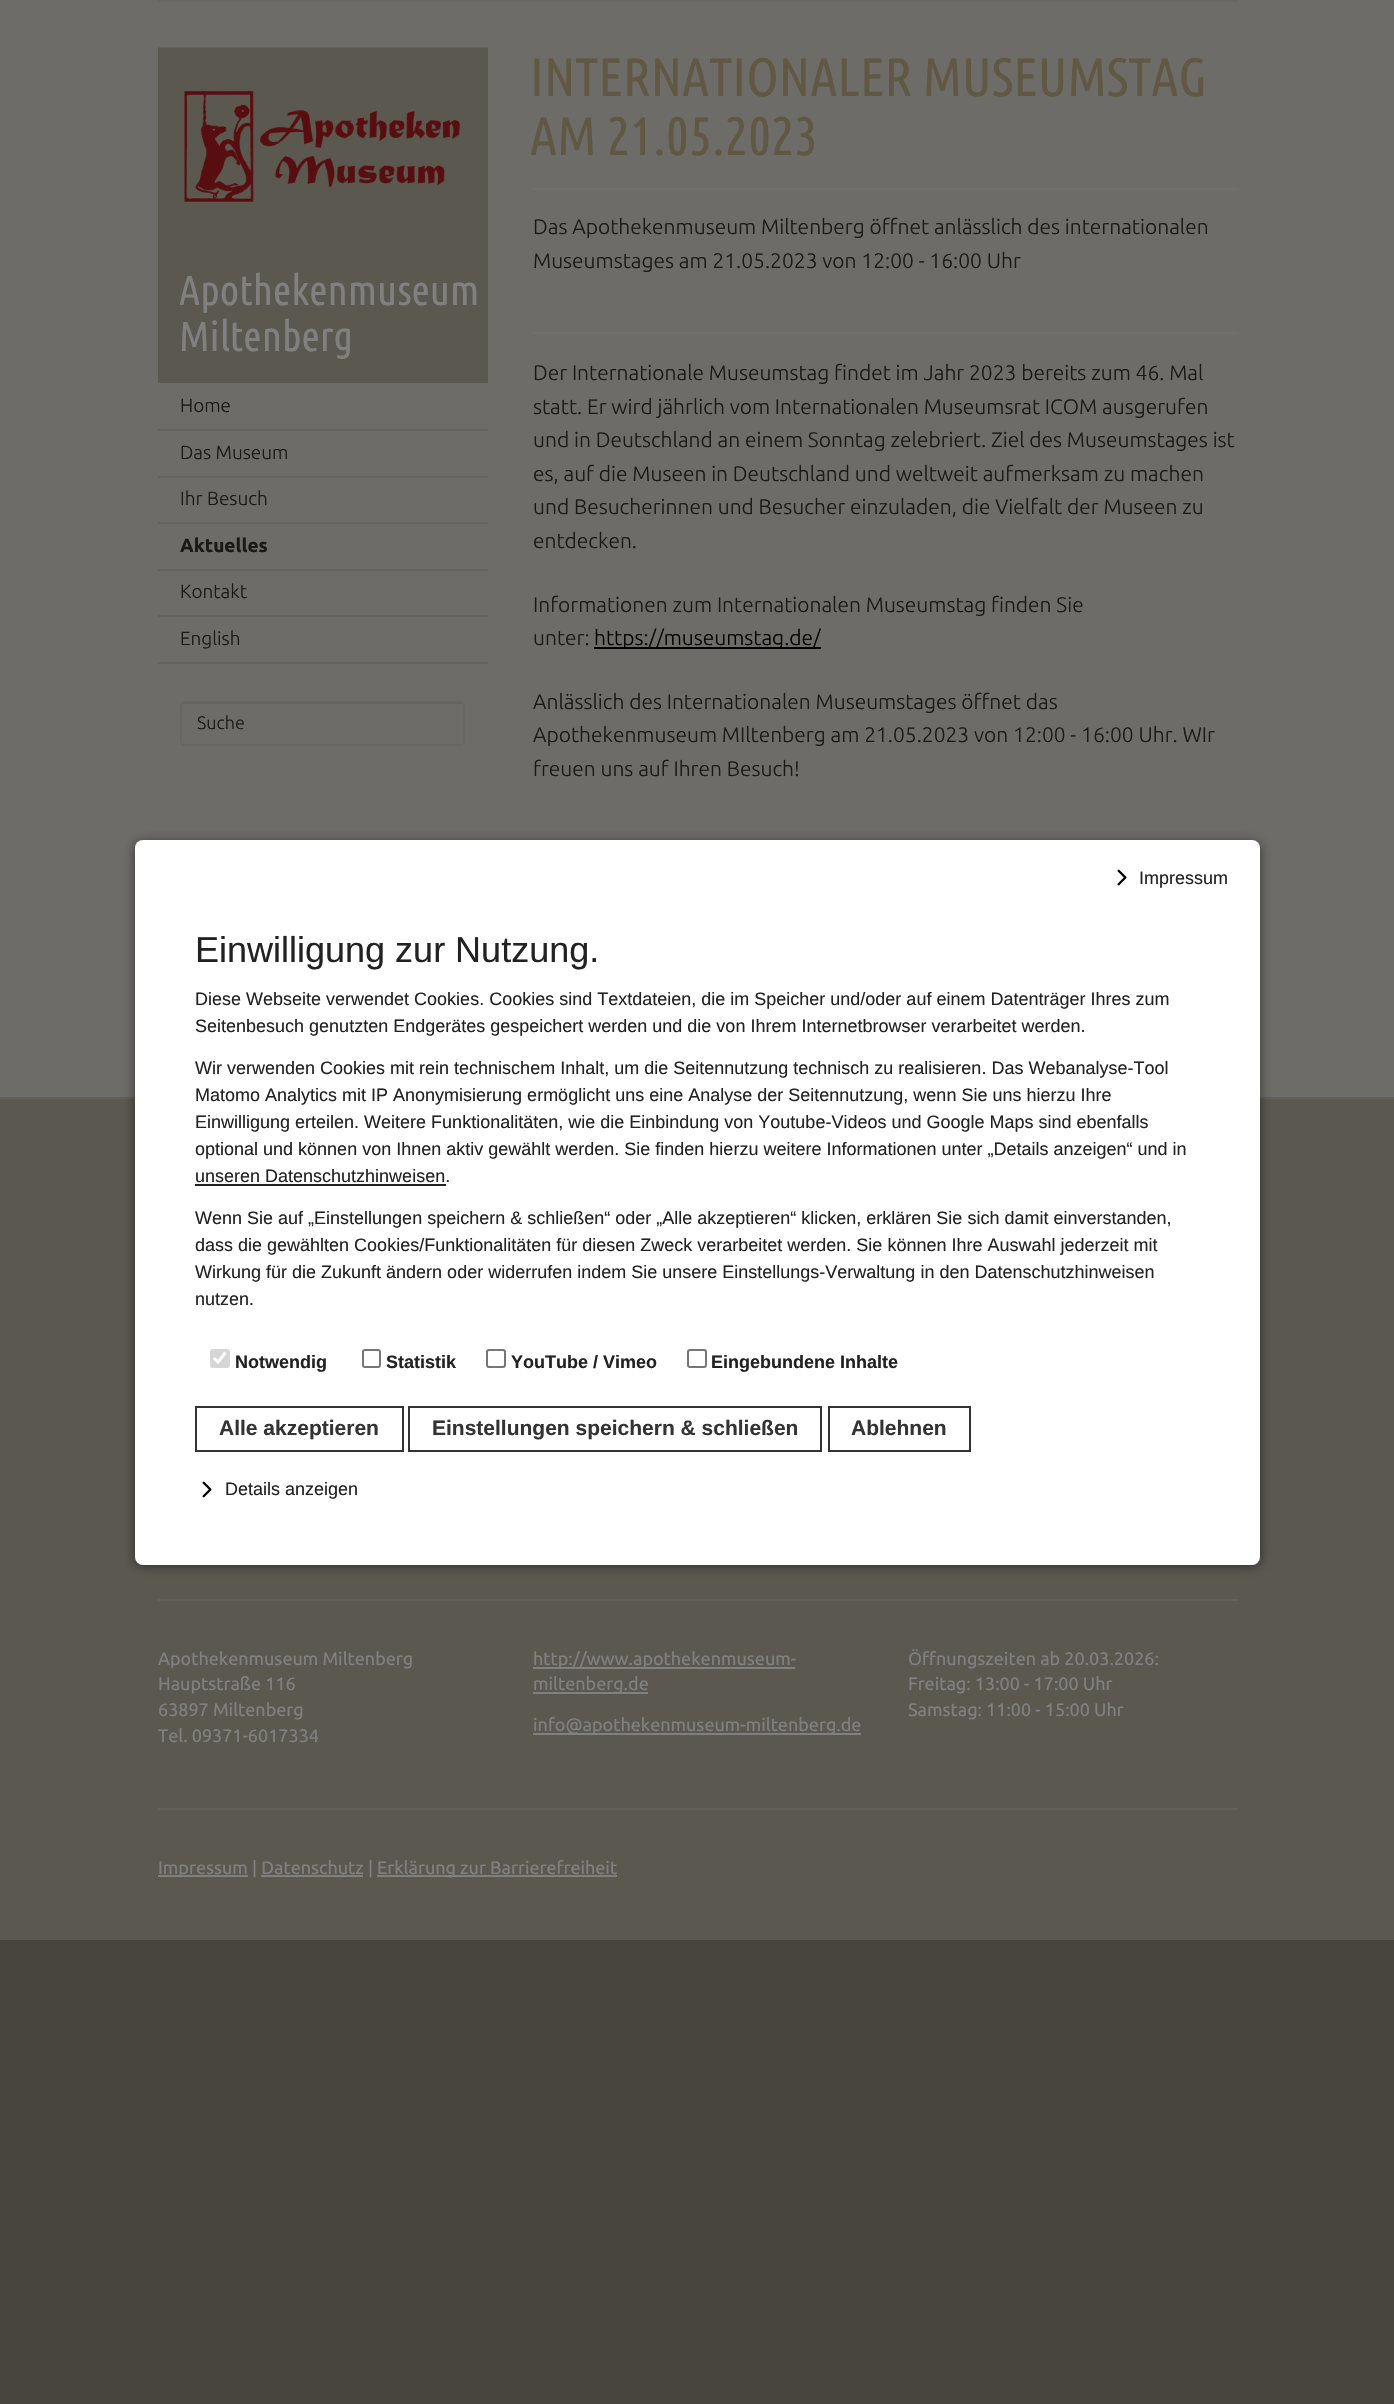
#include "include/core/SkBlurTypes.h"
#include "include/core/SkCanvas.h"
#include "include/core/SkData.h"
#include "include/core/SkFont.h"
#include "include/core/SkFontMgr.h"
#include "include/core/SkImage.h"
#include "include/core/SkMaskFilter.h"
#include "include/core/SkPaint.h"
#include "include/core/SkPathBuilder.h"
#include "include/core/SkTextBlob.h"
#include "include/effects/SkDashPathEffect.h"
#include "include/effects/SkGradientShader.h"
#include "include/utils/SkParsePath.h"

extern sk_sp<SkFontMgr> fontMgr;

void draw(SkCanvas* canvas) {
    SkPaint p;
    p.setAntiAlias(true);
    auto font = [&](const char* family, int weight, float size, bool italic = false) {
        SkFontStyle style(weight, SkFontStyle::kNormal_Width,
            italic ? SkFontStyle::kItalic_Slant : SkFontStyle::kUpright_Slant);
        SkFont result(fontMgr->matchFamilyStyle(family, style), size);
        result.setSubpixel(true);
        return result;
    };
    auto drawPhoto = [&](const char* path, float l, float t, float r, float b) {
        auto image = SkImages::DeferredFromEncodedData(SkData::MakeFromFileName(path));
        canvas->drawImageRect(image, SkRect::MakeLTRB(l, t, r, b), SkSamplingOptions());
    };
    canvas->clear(0xFF48453F);
    {
        const struct { float l, t, r, b; SkColor color; } items[] = {
            {0, 0, 1394, 1097, 0xFF6E6C68},
            {158, 0, 1238, 2, 0xFF696763},
            {158, 47, 488, 48, 0xFF656360},
            {158, 48, 488, 383, 0xFF5B5850},
        };
        for (auto [l, t, r, b, color] : items) {
            p.setColor(color);
            canvas->drawRect(SkRect::MakeLTRB(l, t, r, b), p);
        }
    }
    drawPhoto("media/1.png", 184, 90, 460, 202);
    auto font1 = font("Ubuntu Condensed", 400, 42);
    p.setColor(0xFF808080);
    canvas->drawString("Apothekenmuseum", 179, 305, font1, p);
    canvas->drawString("Miltenberg", 179, 351, font1, p);
    p.setColor(0xFF656360);
    canvas->drawRect(SkRect::MakeLTRB(158, 429, 488, 431), p);
    auto font2 = font("Ubuntu", 300, 19);
    p.setColor(0xFF1A1916);
    canvas->drawString("Home", 180, 412, font2, p);
    p.setColor(0xFF656360);
    canvas->drawRect(SkRect::MakeLTRB(158, 476, 488, 478), p);
    p.setColor(0xFF1A1916);
    canvas->drawString("Das Museum", 180, 459, font2, p);
    p.setColor(0xFF656360);
    canvas->drawRect(SkRect::MakeLTRB(158, 522, 488, 524), p);
    p.setColor(0xFF1A1916);
    canvas->drawString("Ihr Besuch", 180, 505, font2, p);
    p.setColor(0xFF656360);
    canvas->drawRect(SkRect::MakeLTRB(158, 569, 488, 571), p);
    auto font3 = font("Ubuntu", 700, 19);
    p.setColor(0xFF1A1916);
    canvas->drawString("Aktuelles", 180, 552, font3, p);
    p.setColor(0xFF656360);
    canvas->drawRect(SkRect::MakeLTRB(158, 615, 488, 617), p);
    p.setColor(0xFF1A1916);
    canvas->drawString("Kontakt", 180, 598, font2, p);
    p.setColor(0xFF656360);
    canvas->drawRect(SkRect::MakeLTRB(158, 662, 488, 664), p);
    p.setColor(0xFF1A1916);
    canvas->drawString("English", 180, 645, font2, p);
    p.setColor(0xFF666460);
    canvas->drawPath(SkPathBuilder().moveTo(184, 704).lineTo(460, 704).cubicTo(462, 704, 464, 705, 464, 706).lineTo(464, 705).cubicTo(464, 703, 463, 702, 461, 702).lineTo(185, 702).cubicTo(183, 702, 182, 703, 182, 705).lineTo(182, 706).cubicTo(182, 705, 183, 704, 184, 704).close().detach(), p);
    p.setStyle(SkPaint::kStroke_Style);
    p.setStrokeWidth(2);
    p.setColor(0xFF666666);
    canvas->drawRoundRect(SkRect::MakeLTRB(181, 702, 464, 745), 4, 4, p);
    auto font4 = font("Ubuntu", 300, 18);
    p.setStyle(SkPaint::kFill_Style);
    p.setColor(0xFF1A1916);
    canvas->drawString("Suche", 197, 729, font4, p);
    auto font5 = font("Ubuntu Condensed", 400, 54);
    p.setColor(0xFF605843);
    canvas->drawString("INTERNATIONALER MUSEUMSTAG", 530, 96, font5, p);
    canvas->drawString("AM 21.05.2023", 530, 155, font5, p);
    p.setColor(0xFF6F6F6F);
    canvas->drawRect(SkRect::MakeLTRB(533, 188, 1238, 190), p);
    canvas->drawRect(SkRect::MakeLTRB(533, 332, 1238, 334), p);
    auto font6 = font("Ubuntu", 300, 21);
    p.setColor(0xFF1A1916);
    {
        const struct { const char* s; float x, y; } items[] = {
            {"Das Apothekenmuseum Miltenberg öffnet anlässlich des internationalen", 533, 234},
            {"Museumstages am 21.05.2023 von 12:00 - 16:00 Uhr", 533, 268},
            {"Der Internationale Museumstag findet im Jahr 2023 bereits zum 46. Mal", 533, 380},
            {"statt. Er wird jährlich vom Internationalen Museumsrat ICOM ausgerufen", 533, 414},
            {"und in Deutschland an einem Sonntag zelebriert. Ziel des Museumstages ist", 533, 447},
            {"es, auf die Museen in Deutschland und weltweit aufmerksam zu machen", 533, 481},
            {"und Besucherinnen und Besucher einzuladen, die Vielfalt der Museen zu", 533, 514},
            {"entdecken.", 533, 548},
            {"Informationen zum Internationalen Museumstag finden Sie", 533, 612},
            {"unter:", 533, 645},
        };
        for (auto [s, x, y] : items) {
            canvas->drawString(s, x, y, font6, p);
        }
    }
    p.setColor(0xFF000000);
    canvas->drawRect(SkRect::MakeLTRB(594, 647, 821, 649), p);
    canvas->drawString("https://museumstag.de/", 594, 645, font6, p);
    p.setColor(0xFF1A1916);
    {
        const struct { const char* s; float x, y; } items[] = {
            {"Anlässlich des Internationalen Museumstages öffnet das", 533, 709},
            {"Apothekenmuseum MIltenberg am 21.05.2023 von 12:00 - 16:00 Uhr. WIr", 533, 742},
            {"freuen uns auf Ihren Besuch!", 533, 776},
        };
        for (auto [s, x, y] : items) {
            canvas->drawString(s, x, y, font6, p);
        }
    }
    {
        const struct { float l, t, r, b; SkColor color; } items[] = {
            {0, 1099, 1394, 1940, 0xFF5B5850},
            {0, 1097, 1394, 1099, 0xFF63605A},
            {158, 1599, 1238, 1601, 0xFF63605A},
            {158, 1808, 1238, 1810, 0xFF63605A},
        };
        for (auto [l, t, r, b, color] : items) {
            p.setColor(color);
            canvas->drawRect(SkRect::MakeLTRB(l, t, r, b), p);
        }
    }
    auto font7 = font("Ubuntu", 400, 18);
    p.setColor(0xFF808080);
    {
        const struct { const char* s; float x, y; } items[] = {
            {"Apothekenmuseum Miltenberg", 158, 1665},
            {"Hauptstraße 116", 158, 1690},
            {"63897 Miltenberg", 158, 1716},
            {"Tel. 09371-6017334", 158, 1742},
        };
        for (auto [s, x, y] : items) {
            canvas->drawString(s, x, y, font7, p);
        }
    }
    canvas->drawRect(SkRect::MakeLTRB(533, 1667, 795, 1669), p);
    canvas->drawString("http://www.apothekenmuseum-", 533, 1665, font7, p);
    canvas->drawRect(SkRect::MakeLTRB(533, 1692, 648, 1694), p);
    canvas->drawString("miltenberg.de", 533, 1690, font7, p);
    canvas->drawRect(SkRect::MakeLTRB(533, 1733, 861, 1735), p);
    {
        const struct { const char* s; float x, y; } items[] = {
            {"info@apothekenmuseum-miltenberg.de", 533, 1731},
            {"Öffnungszeiten ab 20.03.2026:", 908, 1665},
            {"Freitag: 13:00 - 17:00 Uhr", 908, 1690},
            {"Samstag: 11:00 - 15:00 Uhr", 908, 1716},
        };
        for (auto [s, x, y] : items) {
            canvas->drawString(s, x, y, font7, p);
        }
    }
    canvas->drawRect(SkRect::MakeLTRB(158, 1875, 248, 1877), p);
    canvas->drawString("Impressum | Datenschutz |", 158, 1874, font7, p);
    canvas->drawRect(SkRect::MakeLTRB(377, 1875, 617, 1877), p);
    canvas->drawString("Erklärung zur Barrierefreiheit", 377, 1874, font7, p);
    canvas->drawRect(SkRect::MakeLTRB(261, 1875, 363, 1877), p);
    p.setColor(0x80000000);
    p.setMaskFilter(SkMaskFilter::MakeBlur(kNormal_SkBlurStyle, 6));
    canvas->drawRoundRect(SkRect::MakeLTRB(135, 842, 1260, 1566), 8, 8, p);
    p.setMaskFilter(nullptr);
    p.setColor(0xFFFFFFFF);
    canvas->drawRoundRect(SkRect::MakeLTRB(135, 840, 1260, 1565), 8, 8, p);
    drawPhoto("media/2.png", 1117, 869, 1127, 886);
    auto font8 = font("Liberation Sans", 400, 18);
    p.setColor(0xFF222222);
    canvas->drawString("Impressum", 1139, 884, font8, p);
    auto font9 = font("Liberation Sans", 400, 36);
    canvas->drawString("Einwilligung zur Nutzung.", 195, 962, font9, p);
    {
        const struct { const char* s; float x, y; } items[] = {
            {"Diese Webseite verwendet Cookies. Cookies sind Textdateien, die im Speicher und/oder auf einem Datenträger Ihres zum", 195, 1005},
            {"Seitenbesuch genutzten Endgerätes gespeichert werden und die von Ihrem Internetbrowser verarbeitet werden.", 195, 1032},
            {"Wir verwenden Cookies mit rein technischem Inhalt, um die Seitennutzung technisch zu realisieren. Das Webanalyse-Tool", 195, 1074},
            {"Matomo Analytics mit IP Anonymisierung ermöglicht uns eine Analyse der Seitennutzung, wenn Sie uns hierzu Ihre", 195, 1101},
            {"Einwilligung erteilen. Weitere Funktionalitäten, wie die Einbindung von Youtube-Videos und Google Maps sind ebenfalls", 195, 1128},
            {"optional und können von Ihnen aktiv gewählt werden. Sie finden hierzu weitere Informationen unter „Details anzeigen“ und in", 195, 1155},
            {"unseren Datenschutzhinweisen.", 195, 1182},
        };
        for (auto [s, x, y] : items) {
            canvas->drawString(s, x, y, font8, p);
        }
    }
    canvas->drawRect(SkRect::MakeLTRB(195, 1184, 446, 1186), p);
    {
        const struct { const char* s; float x, y; } items[] = {
            {"Wenn Sie auf „Einstellungen speichern & schließen“ oder „Alle akzeptieren“ klicken, erklären Sie sich damit einverstanden,", 195, 1224},
            {"dass die gewählten Cookies/Funktionalitäten für diesen Zweck verarbeitet werden. Sie können Ihre Auswahl jederzeit mit", 195, 1251},
            {"Wirkung für die Zukunft ändern oder widerrufen indem Sie unsere Einstellungs-Verwaltung in den Datenschutzhinweisen", 195, 1278},
            {"nutzen.", 195, 1305},
        };
        for (auto [s, x, y] : items) {
            canvas->drawString(s, x, y, font8, p);
        }
    }
    p.setColor(0xFFD6D6D6);
    canvas->drawRoundRect(SkRect::MakeLTRB(210, 1349, 230, 1368), 3, 3, p);
    p.setStyle(SkPaint::kStroke_Style);
    p.setStrokeWidth(3.1f);
    p.setColor(0xFFFFFFFF);
    canvas->drawPath(SkPathBuilder().moveTo(214, 1358).lineTo(218, 1362).lineTo(225.5f, 1352.5f).detach(), p);
    auto font10 = font("Liberation Sans", 700, 18);
    p.setStyle(SkPaint::kFill_Style);
    p.setColor(0xFF222222);
    canvas->drawString("Notwendig", 235, 1368, font10, p);
    p.setStyle(SkPaint::kStroke_Style);
    p.setStrokeWidth(2);
    p.setColor(0xFF767676);
    canvas->drawRoundRect(SkRect::MakeLTRB(363, 1350, 380, 1367), 2, 2, p);
    p.setStyle(SkPaint::kFill_Style);
    p.setColor(0xFF222222);
    canvas->drawString("Statistik", 386, 1368, font10, p);
    p.setStyle(SkPaint::kStroke_Style);
    p.setColor(0xFF767676);
    canvas->drawRoundRect(SkRect::MakeLTRB(487, 1350, 505, 1367), 2, 2, p);
    p.setStyle(SkPaint::kFill_Style);
    p.setColor(0xFF222222);
    canvas->drawString("YouTube / Vimeo", 511, 1368, font10, p);
    p.setStyle(SkPaint::kStroke_Style);
    p.setColor(0xFF767676);
    canvas->drawRoundRect(SkRect::MakeLTRB(688, 1350, 706, 1367), 2, 2, p);
    p.setStyle(SkPaint::kFill_Style);
    p.setColor(0xFF222222);
    canvas->drawString("Eingebundene Inhalte", 711, 1368, font10, p);
    p.setStyle(SkPaint::kStroke_Style);
    p.setColor(0xFF333333);
    canvas->drawRect(SkRect::MakeLTRB(196, 1407, 403, 1451), p);
    auto font11 = font("Liberation Sans", 700, 21);
    p.setStyle(SkPaint::kFill_Style);
    canvas->drawString("Alle akzeptieren", 219, 1435, font11, p);
    p.setStyle(SkPaint::kStroke_Style);
    canvas->drawRect(SkRect::MakeLTRB(409, 1407, 821, 1451), p);
    p.setStyle(SkPaint::kFill_Style);
    canvas->drawString("Einstellungen speichern & schließen", 432, 1435, font11, p);
    p.setStyle(SkPaint::kStroke_Style);
    canvas->drawRect(SkRect::MakeLTRB(829, 1407, 970, 1451), p);
    p.setStyle(SkPaint::kFill_Style);
    canvas->drawString("Ablehnen", 851, 1435, font11, p);
    drawPhoto("media/2.png", 202, 1481, 212, 1498);
    p.setColor(0xFF222222);
    canvas->drawString("Details anzeigen", 225, 1495, font8, p);
}
